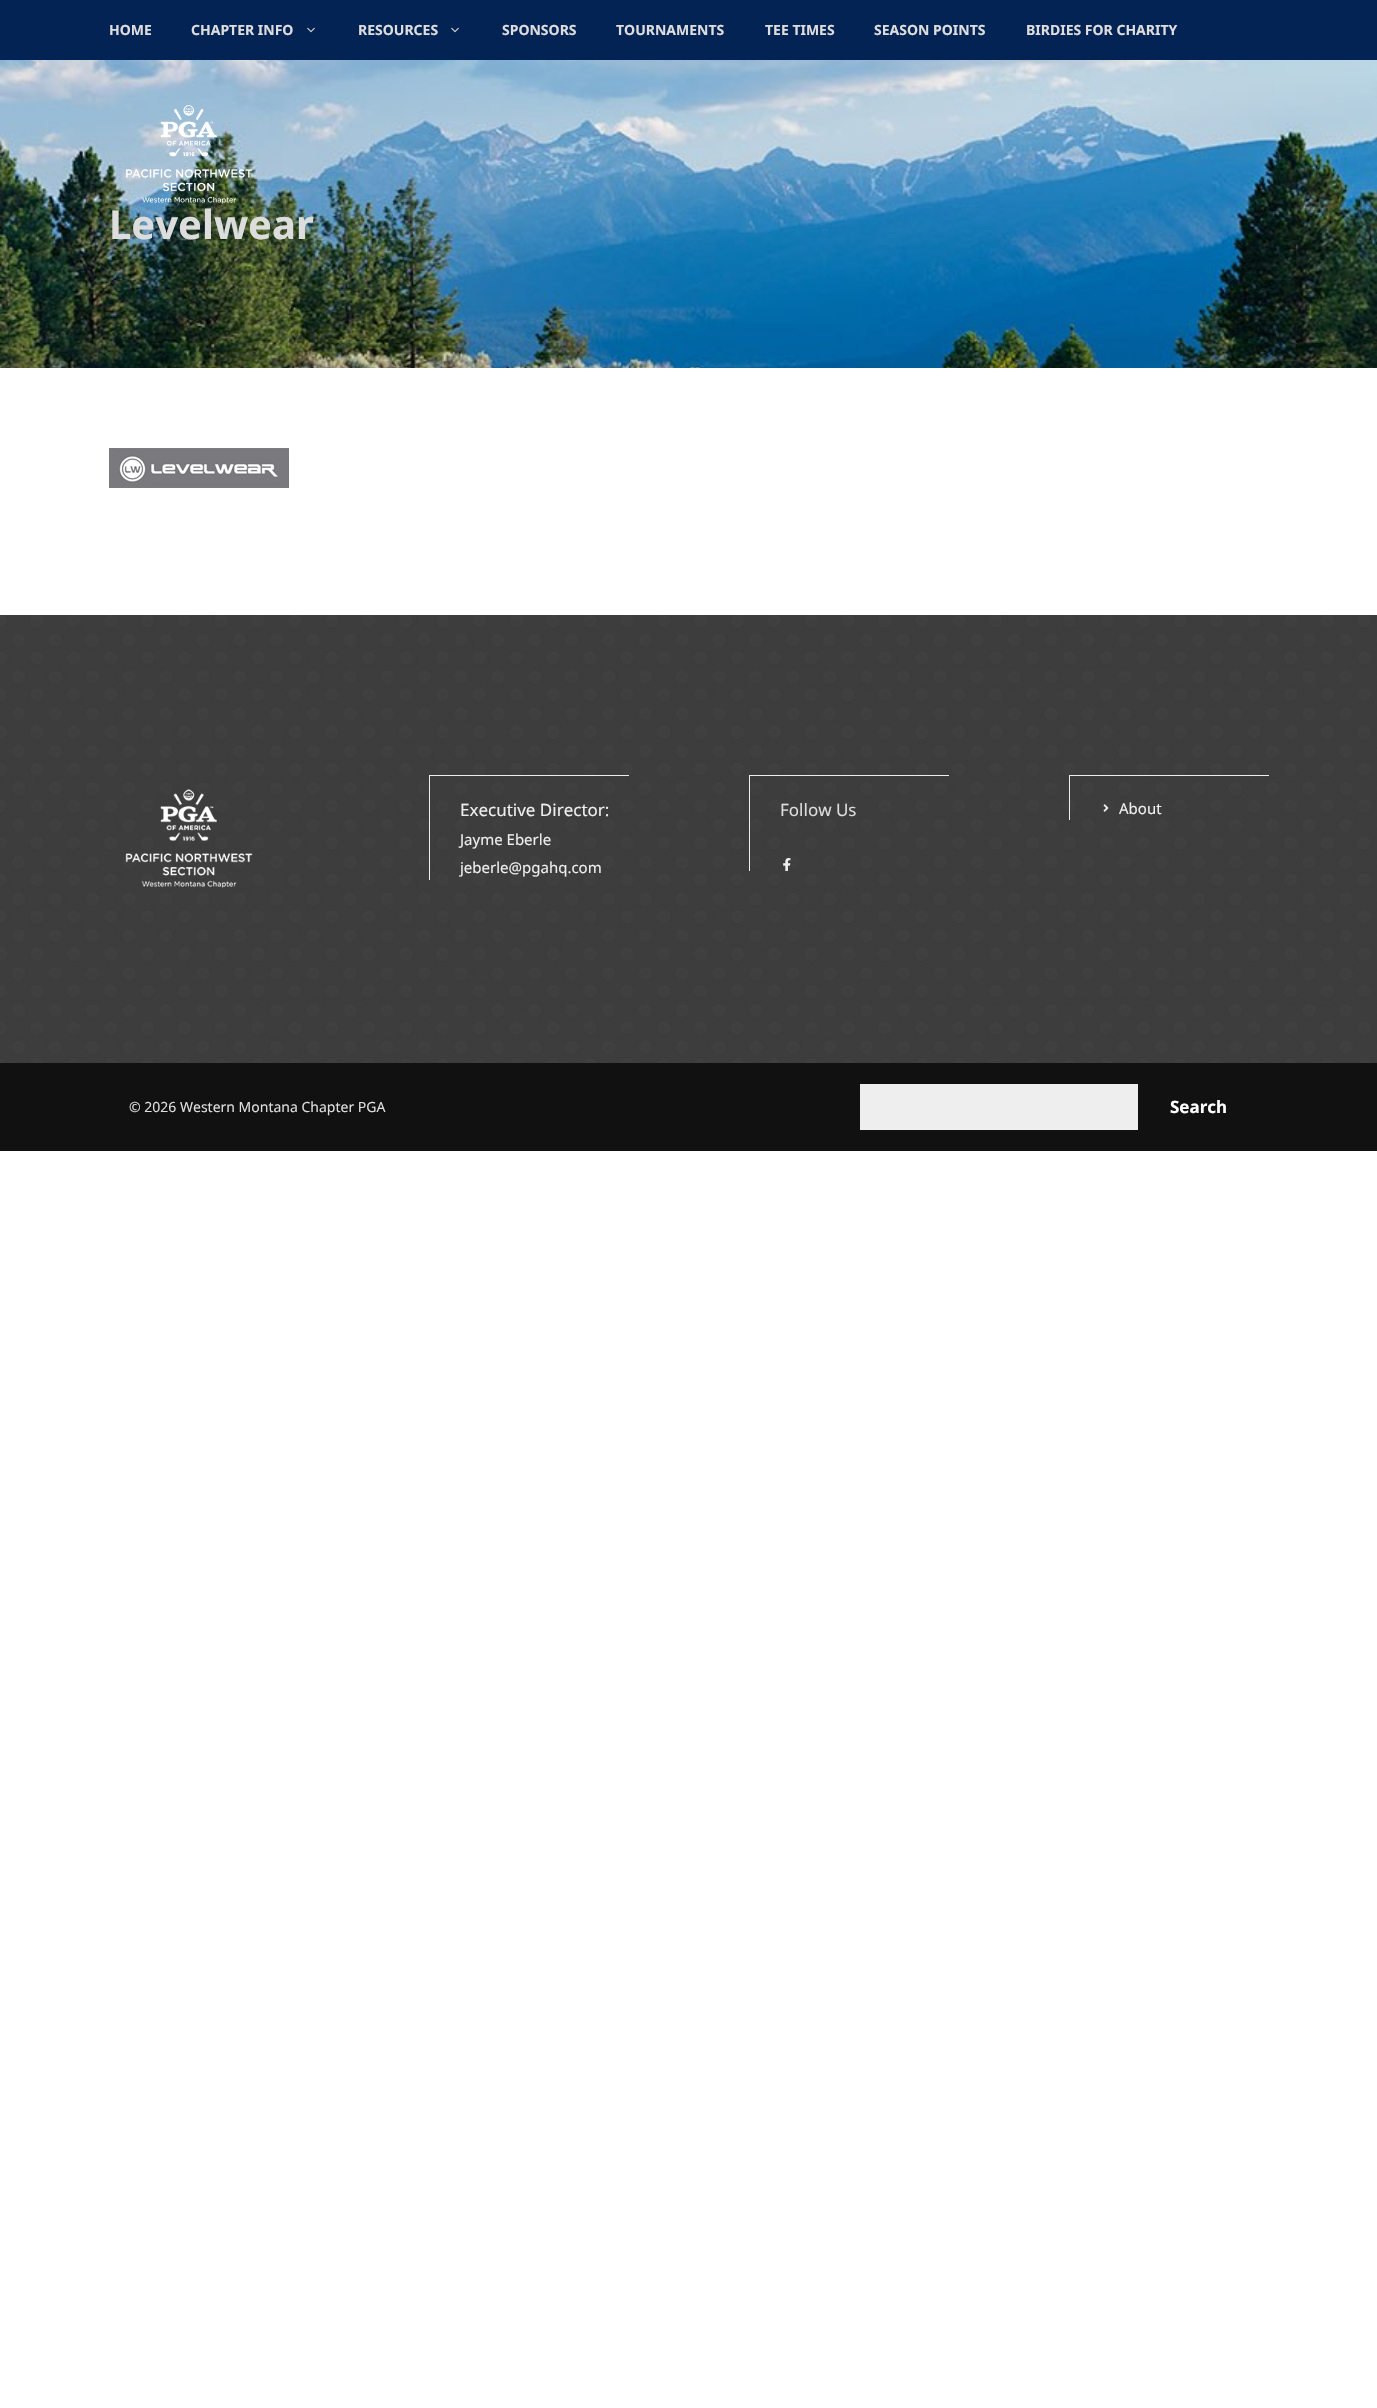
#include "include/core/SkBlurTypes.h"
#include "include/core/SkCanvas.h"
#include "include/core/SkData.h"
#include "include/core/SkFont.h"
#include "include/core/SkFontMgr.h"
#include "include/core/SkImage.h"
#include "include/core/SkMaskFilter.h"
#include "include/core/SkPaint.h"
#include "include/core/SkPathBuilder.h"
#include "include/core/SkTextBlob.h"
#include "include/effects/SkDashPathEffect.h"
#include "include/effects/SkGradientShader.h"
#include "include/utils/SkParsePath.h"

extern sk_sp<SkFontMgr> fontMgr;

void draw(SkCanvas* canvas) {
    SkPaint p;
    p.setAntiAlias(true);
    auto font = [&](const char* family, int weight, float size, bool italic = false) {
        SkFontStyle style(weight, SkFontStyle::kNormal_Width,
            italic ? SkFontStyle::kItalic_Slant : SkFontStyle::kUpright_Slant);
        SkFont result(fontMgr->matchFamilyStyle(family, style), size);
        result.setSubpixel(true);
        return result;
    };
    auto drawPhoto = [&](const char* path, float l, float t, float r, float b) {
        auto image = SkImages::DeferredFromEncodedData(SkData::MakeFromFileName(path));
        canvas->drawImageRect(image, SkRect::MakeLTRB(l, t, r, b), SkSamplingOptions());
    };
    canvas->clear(0xFFFFFFFF);
    p.setColor(0xFF032354);
    canvas->drawRect(SkRect::MakeLTRB(0, 0, 1377, 60), p);
    auto font1 = font("Noto Sans", 700, 14);
    p.setColor(0xFFDDDDDD);
    canvas->drawString("HOME", 109, 35, font1, p);
    canvas->drawString("CHAPTER INFO", 191, 35, font1, p);
    drawPhoto("media/1.png", 307, 27, 315, 33);
    canvas->drawString("RESOURCES", 358, 35, font1, p);
    drawPhoto("media/1.png", 451, 27, 459, 33);
    {
        const struct { const char* s; float x, y; } items[] = {
            {"SPONSORS", 502, 35},
            {"TOURNAMENTS", 616, 35},
            {"TEE TIMES", 765, 35},
            {"SEASON POINTS", 874, 35},
            {"BIRDIES FOR CHARITY", 1026, 35},
        };
        for (auto [s, x, y] : items) {
            canvas->drawString(s, x, y, font1, p);
        }
    }
    drawPhoto("media/3.png", 0, 60, 1377, 368);
    drawPhoto("media/2.png", 125, 105, 253, 204);
    auto font2 = font("Noto Sans", 700, 40);
    canvas->drawString("Levelwear", 109, 239, font2, p);
    drawPhoto("media/4.png", 109, 448, 289, 488);
    p.setColor(0xFF111111);
    canvas->drawRect(SkRect::MakeLTRB(0, 615, 1377, 1151), p);
    drawPhoto("media/5.png", 0, 615, 1377, 1063);
    drawPhoto("media/6.png", 125, 789, 253, 888);
    p.setColor(0xFFEEEEEE);
    canvas->drawRect(SkRect::MakeLTRB(429, 775, 629, 776), p);
    canvas->drawRect(SkRect::MakeLTRB(429, 775, 430, 880), p);
    auto font3 = font("Noto Sans", 400, 17);
    canvas->drawString("Executive Director:", 460, 816, font3, p);
    auto font4 = font("Noto Sans", 400, 15);
    canvas->drawString("Jayme Eberle", 460, 845, font4, p);
    canvas->drawString("jeberle@pgahq.com", 460, 873, font4, p);
    canvas->drawRect(SkRect::MakeLTRB(749, 775, 949, 776), p);
    canvas->drawRect(SkRect::MakeLTRB(749, 775, 750, 871), p);
    p.setColor(0xFFDDDDDD);
    canvas->drawString("Follow Us", 780, 816, font3, p);
    drawPhoto("media/7.png", 783, 858, 791, 871);
    p.setColor(0xFFEEEEEE);
    canvas->drawRect(SkRect::MakeLTRB(1069, 775, 1269, 776), p);
    canvas->drawRect(SkRect::MakeLTRB(1069, 775, 1070, 820), p);
    drawPhoto("media/8.png", 1103, 804, 1109, 812);
    canvas->drawString("About", 1119, 814, font4, p);
    auto font5 = font("Noto Sans", 400, 14);
    p.setColor(0xFFDDDDDD);
    canvas->drawString("© 2026 Western Montana Chapter PGA", 129, 1112, font5, p);
    p.setColor(0xFFEEEEEE);
    canvas->drawRect(SkRect::MakeLTRB(860, 1084, 1138, 1130), p);
    auto font6 = font("Noto Sans", 700, 17);
    p.setColor(0xFFFFFFFF);
    canvas->drawString("Search", 1170, 1113, font6, p);
}
